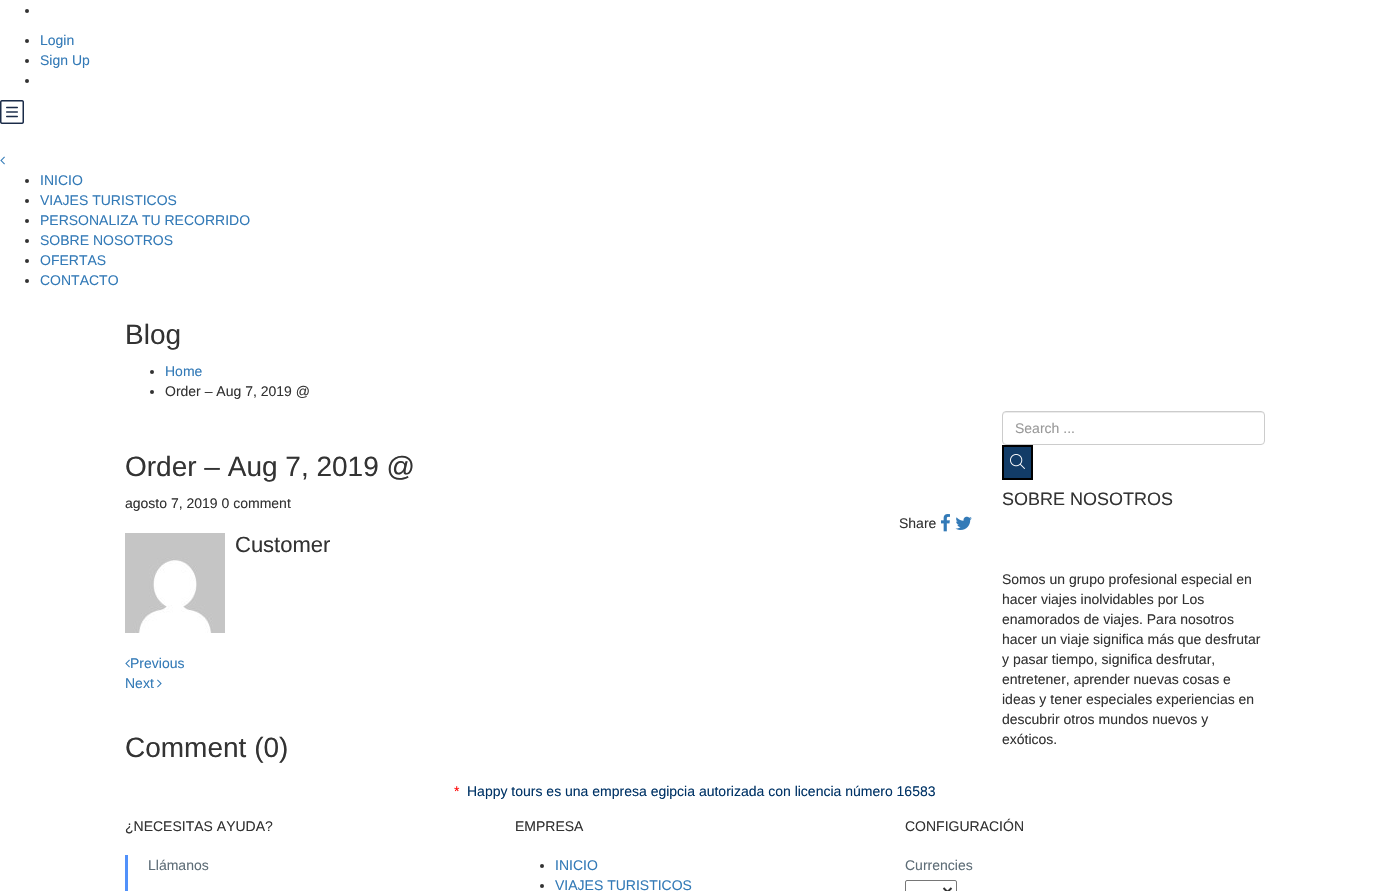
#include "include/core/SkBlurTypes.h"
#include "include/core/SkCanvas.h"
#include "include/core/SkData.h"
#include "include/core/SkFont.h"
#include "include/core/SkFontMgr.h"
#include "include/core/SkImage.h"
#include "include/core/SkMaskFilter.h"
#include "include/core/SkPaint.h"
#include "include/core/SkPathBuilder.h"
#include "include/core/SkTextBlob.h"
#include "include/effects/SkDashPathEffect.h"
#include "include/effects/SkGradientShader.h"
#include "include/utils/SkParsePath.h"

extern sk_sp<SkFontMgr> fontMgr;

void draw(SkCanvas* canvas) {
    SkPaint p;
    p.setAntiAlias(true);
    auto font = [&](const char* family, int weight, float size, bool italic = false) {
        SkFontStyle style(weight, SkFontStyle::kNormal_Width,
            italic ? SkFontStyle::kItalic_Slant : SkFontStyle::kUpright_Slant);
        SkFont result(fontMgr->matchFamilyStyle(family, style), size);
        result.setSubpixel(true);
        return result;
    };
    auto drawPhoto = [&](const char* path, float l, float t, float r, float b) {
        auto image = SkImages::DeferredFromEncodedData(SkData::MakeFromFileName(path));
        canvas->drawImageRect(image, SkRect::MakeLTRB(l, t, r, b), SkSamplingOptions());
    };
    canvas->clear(0xFFFFFFFF);
    p.setColor(0xFF333333);
    canvas->drawCircle(27, 11, 2, p);
    canvas->drawCircle(27, 41, 2, p);
    auto font1 = font("Liberation Sans", 400, 14);
    p.setColor(0xFF337AB7);
    canvas->drawString("Login", 40, 45, font1, p);
    p.setColor(0xFF333333);
    canvas->drawCircle(27, 61, 2, p);
    p.setColor(0xFF337AB7);
    canvas->drawString("Sign Up", 40, 65, font1, p);
    p.setColor(0xFF333333);
    canvas->drawCircle(27, 81, 2, p);
    drawPhoto("media/1.png", 0, 100, 24, 124);
    drawPhoto("media/2.png", 0, 156, 5, 165);
    canvas->drawCircle(27, 181, 2, p);
    p.setColor(0xFF337AB7);
    canvas->drawString("INICIO", 40, 185, font1, p);
    p.setColor(0xFF333333);
    canvas->drawCircle(27, 201, 2, p);
    p.setColor(0xFF337AB7);
    canvas->drawString("VIAJES TURISTICOS", 40, 205, font1, p);
    p.setColor(0xFF333333);
    canvas->drawCircle(27, 221, 2, p);
    p.setColor(0xFF337AB7);
    canvas->drawString("PERSONALIZA TU RECORRIDO", 40, 225, font1, p);
    p.setColor(0xFF333333);
    canvas->drawCircle(27, 241, 2, p);
    p.setColor(0xFF337AB7);
    canvas->drawString("SOBRE NOSOTROS", 40, 245, font1, p);
    p.setColor(0xFF333333);
    canvas->drawCircle(27, 261, 2, p);
    p.setColor(0xFF337AB7);
    canvas->drawString("OFERTAS", 40, 265, font1, p);
    p.setColor(0xFF333333);
    canvas->drawCircle(27, 281, 2, p);
    p.setColor(0xFF337AB7);
    canvas->drawString("CONTACTO", 40, 285, font1, p);
    auto font2 = font("Liberation Sans", 400, 28);
    p.setColor(0xFF333333);
    canvas->drawString("Blog", 125, 344, font2, p);
    canvas->drawCircle(152, 372, 2, p);
    p.setColor(0xFF337AB7);
    canvas->drawString("Home", 165, 376, font1, p);
    p.setColor(0xFF333333);
    canvas->drawCircle(152, 392, 2, p);
    canvas->drawString("Order – Aug 7, 2019 @", 165, 396, font1, p);
    canvas->drawString("Order – Aug 7, 2019 @", 125, 476, font2, p);
    canvas->drawString("agosto 7, 2019 0 comment", 125, 508, font1, p);
    canvas->drawString("Share", 899, 528, font1, p);
    drawPhoto("media/3.png", 941, 514, 950, 532);
    drawPhoto("media/4.png", 955, 516, 972, 530);
    drawPhoto("media/5.png", 125, 533, 225, 633);
    auto font3 = font("Liberation Sans", 400, 22);
    canvas->drawString("Customer", 235, 552, font3, p);
    drawPhoto("media/2.png", 125, 659, 130, 668);
    p.setColor(0xFF337AB7);
    canvas->drawString("Previous", 130, 668, font1, p);
    canvas->drawString("Next", 125, 688, font1, p);
    drawPhoto("media/6.png", 157, 679, 162, 688);
    p.setColor(0xFF333333);
    canvas->drawString("Comment (0)", 125, 757, font2, p);
    p.setColor(0xFFECECEC);
    canvas->drawPath(SkPathBuilder().moveTo(1006, 413).lineTo(1262, 413).lineTo(1264, 414).lineTo(1264, 416).lineTo(1264, 415).cubicTo(1264, 413, 1263, 412, 1261, 412).lineTo(1006, 412).cubicTo(1004, 412, 1003, 413, 1003, 415).lineTo(1003, 416).cubicTo(1003, 414, 1004, 413, 1006, 413).close().detach(), p);
    p.setStyle(SkPaint::kStroke_Style);
    p.setStrokeWidth(1);
    p.setColor(0xFFCCCCCC);
    canvas->drawRoundRect(SkRect::MakeLTRB(1002.5f, 411.5f, 1264.5f, 444.5f), 3.5f, 3.5f, p);
    p.setStyle(SkPaint::kFill_Style);
    p.setColor(0xFF999999);
    canvas->drawString("Search ...", 1015, 433, font1, p);
    p.setColor(0xFF123C67);
    canvas->drawRect(SkRect::MakeLTRB(1003, 446, 1032, 479), p);
    p.setStyle(SkPaint::kStroke_Style);
    p.setStrokeWidth(2);
    p.setColor(0xFF000000);
    canvas->drawRect(SkRect::MakeLTRB(1003, 446, 1032, 479), p);
    drawPhoto("media/7.png", 1010, 454, 1025, 469);
    auto font4 = font("Liberation Sans", 400, 18);
    p.setStyle(SkPaint::kFill_Style);
    p.setColor(0xFF333333);
    canvas->drawString("SOBRE NOSOTROS", 1002, 505, font4, p);
    {
        const struct { const char* s; float x, y; } items[] = {
            {"Somos un grupo profesional especial en", 1002, 584},
            {"hacer viajes inolvidables por Los", 1002, 604},
            {"enamorados de viajes. Para nosotros", 1002, 624},
            {"hacer un viaje significa más que desfrutar", 1002, 644},
            {"y pasar tiempo, significa desfrutar,", 1002, 664},
            {"entretener, aprender nuevas cosas e", 1002, 684},
            {"ideas y tener especiales experiencias en", 1002, 704},
            {"descubrir otros mundos nuevos y", 1002, 724},
            {"exóticos.", 1002, 744},
        };
        for (auto [s, x, y] : items) {
            canvas->drawString(s, x, y, font1, p);
        }
    }
    p.setColor(0xFFFF0000);
    canvas->drawString("*", 454, 796, font1, p);
    p.setColor(0xFF003366);
    canvas->drawString("Happy tours es una empresa egipcia autorizada con licencia número 16583", 467, 796, font1, p);
    p.setColor(0xFF333333);
    canvas->drawString("¿NECESITAS AYUDA?", 125, 831, font1, p);
    p.setColor(0xFF5191FA);
    canvas->drawRect(SkRect::MakeLTRB(125, 855, 128, 891), p);
    p.setColor(0xFF5E6D77);
    canvas->drawString("Llámanos", 148, 870, font1, p);
    p.setColor(0xFF333333);
    canvas->drawString("EMPRESA", 515, 831, font1, p);
    canvas->drawCircle(542, 866, 2, p);
    p.setColor(0xFF337AB7);
    canvas->drawString("INICIO", 555, 870, font1, p);
    p.setColor(0xFF333333);
    canvas->drawCircle(542, 886, 2, p);
    p.setColor(0xFF337AB7);
    canvas->drawString("VIAJES TURISTICOS", 555, 890, font1, p);
    p.setColor(0xFF333333);
    canvas->drawString("CONFIGURACIÓN", 905, 831, font1, p);
    p.setColor(0xFF5E6D77);
    canvas->drawString("Currencies", 905, 870, font1, p);
    p.setStyle(SkPaint::kStroke_Style);
    p.setStrokeWidth(1);
    p.setColor(0xFF767676);
    canvas->drawRoundRect(SkRect::MakeLTRB(905.5f, 880.5f, 956.5f, 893.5f), 1.5f, 1.5f, p);
    p.setStrokeWidth(2);
    p.setColor(0xFF333333);
    canvas->drawPath(SkPathBuilder().moveTo(943.5f, 888).lineTo(947.5f, 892).lineTo(951.5f, 888).detach(), p);
}
